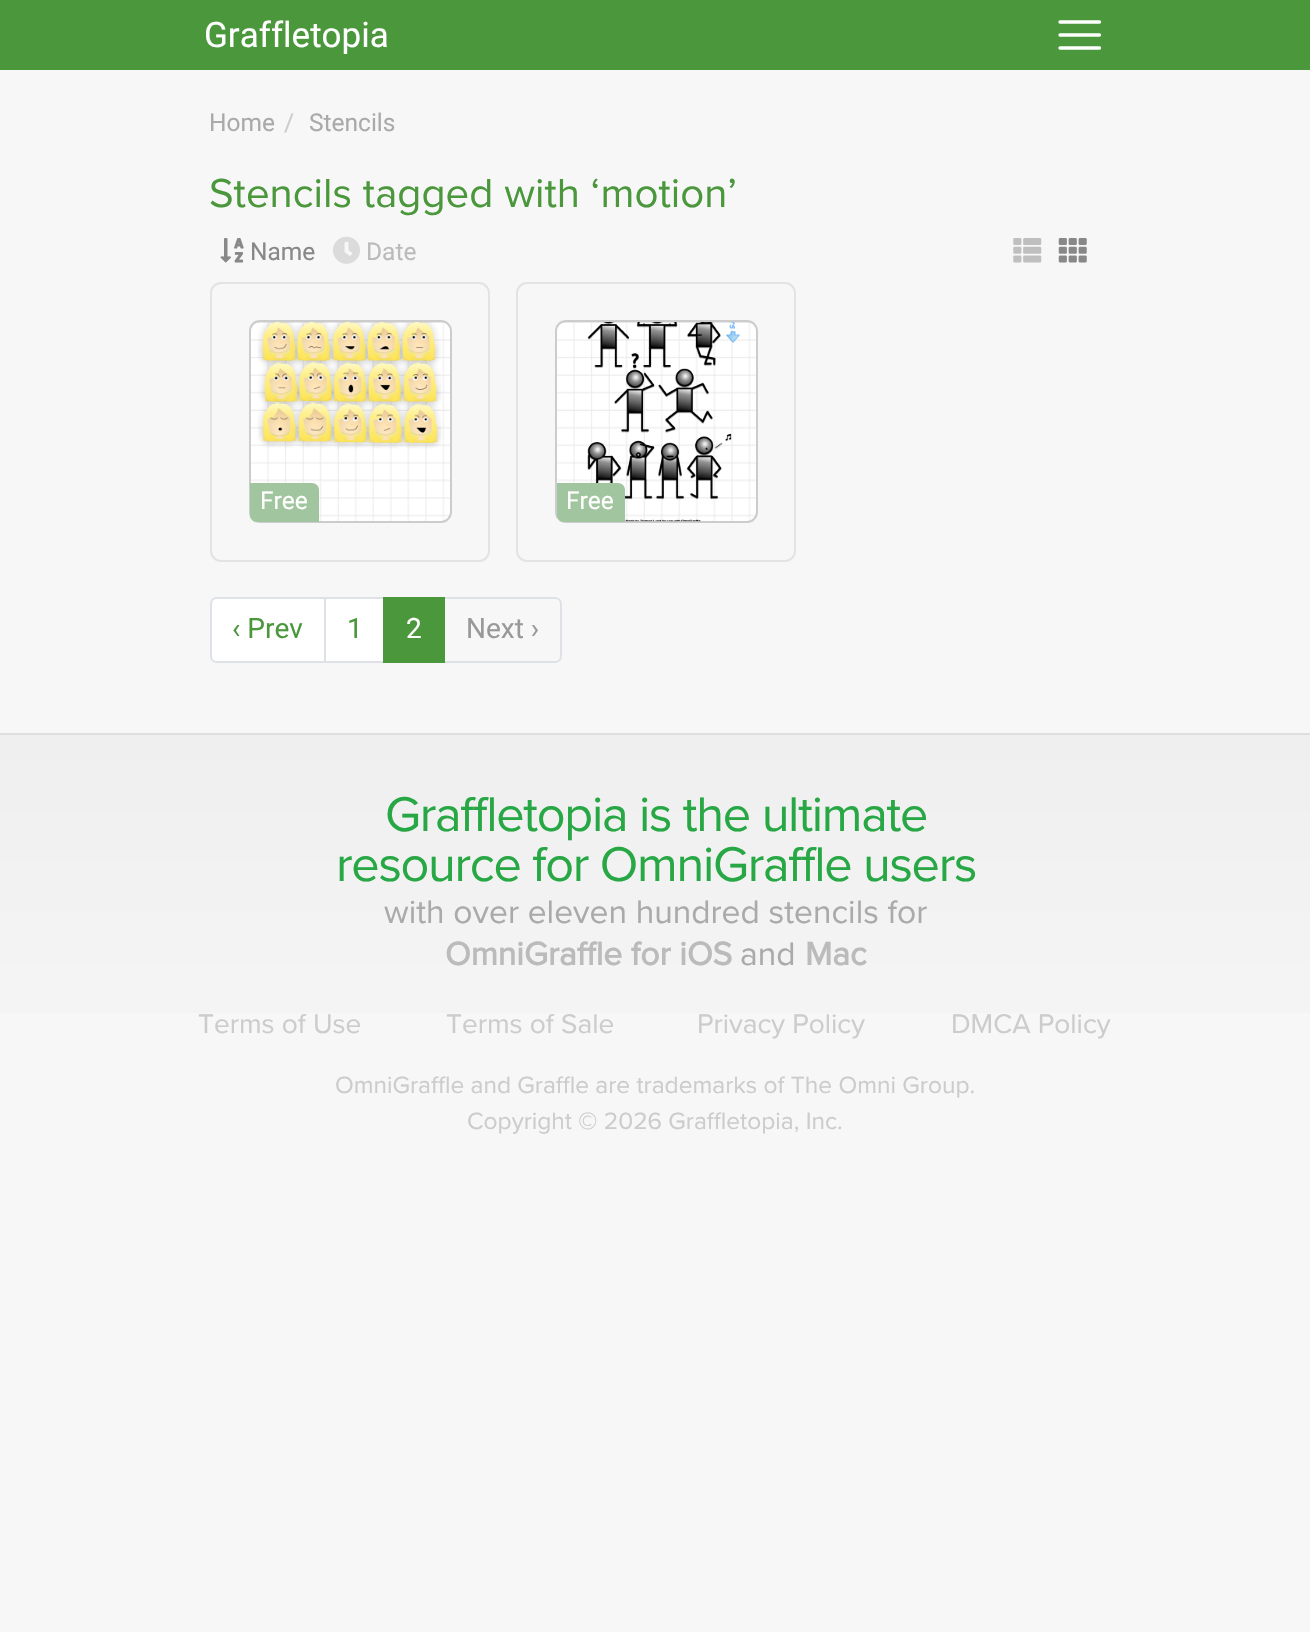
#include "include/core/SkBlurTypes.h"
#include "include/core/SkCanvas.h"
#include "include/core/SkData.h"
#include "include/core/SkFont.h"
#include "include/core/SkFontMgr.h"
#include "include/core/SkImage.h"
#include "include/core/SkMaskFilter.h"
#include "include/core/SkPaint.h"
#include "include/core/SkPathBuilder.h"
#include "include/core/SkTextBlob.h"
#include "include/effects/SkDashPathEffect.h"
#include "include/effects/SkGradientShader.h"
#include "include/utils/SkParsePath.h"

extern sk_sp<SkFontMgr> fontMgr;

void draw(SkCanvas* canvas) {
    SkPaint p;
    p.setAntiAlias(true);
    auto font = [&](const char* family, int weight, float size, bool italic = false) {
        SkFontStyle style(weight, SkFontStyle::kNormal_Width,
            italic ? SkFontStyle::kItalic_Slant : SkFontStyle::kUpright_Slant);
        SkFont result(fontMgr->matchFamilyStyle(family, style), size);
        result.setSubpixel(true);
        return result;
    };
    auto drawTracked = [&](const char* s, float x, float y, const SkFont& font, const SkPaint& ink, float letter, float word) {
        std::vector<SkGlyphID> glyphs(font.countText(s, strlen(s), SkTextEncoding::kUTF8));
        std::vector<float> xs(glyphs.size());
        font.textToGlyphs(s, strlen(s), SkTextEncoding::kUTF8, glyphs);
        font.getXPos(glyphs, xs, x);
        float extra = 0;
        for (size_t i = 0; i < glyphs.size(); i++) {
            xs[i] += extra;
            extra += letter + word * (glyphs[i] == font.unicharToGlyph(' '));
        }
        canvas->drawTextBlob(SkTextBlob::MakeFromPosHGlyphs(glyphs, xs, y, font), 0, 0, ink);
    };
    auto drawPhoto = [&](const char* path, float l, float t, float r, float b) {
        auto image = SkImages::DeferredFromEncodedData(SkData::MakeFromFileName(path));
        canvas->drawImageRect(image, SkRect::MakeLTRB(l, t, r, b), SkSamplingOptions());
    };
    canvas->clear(0xFFF7F7F7);
    p.setColor(0xFF4A973C);
    canvas->drawRect(SkRect::MakeLTRB(0, 0, 1310, 70), p);
    auto font1 = font("Roboto", 400, 35);
    p.setColor(0xFFFFFFFF);
    canvas->drawString("Graffletopia", 204, 47, font1, p);
    p.setStyle(SkPaint::kStroke_Style);
    p.setStrokeWidth(3.3f);
    p.setStrokeCap(SkPaint::kRound_Cap);
    canvas->drawPath(SkPathBuilder().moveTo(1060, 22).lineTo(1099.5f, 22).moveTo(1060, 35).lineTo(1099.5f, 35).moveTo(1060, 48).lineTo(1099.5f, 48).detach(), p);
    auto font2 = font("Roboto", 400, 24.5f);
    p.setStyle(SkPaint::kFill_Style);
    p.setColor(0xFFAAAAAA);
    canvas->drawString("Home", 209, 131, font2, p);
    p.setColor(0xFFCCCCCC);
    canvas->drawString("/", 284, 131, font2, p);
    p.setColor(0xFFAAAAAA);
    canvas->drawString("Stencils", 309, 131, font2, p);
    auto font3 = font("Proxima Nova", 400, 42);
    p.setColor(0xFF4A973C);
    canvas->drawString("Stencils tagged with ‘motion’", 209, 207, font3, p);
    drawPhoto("media/1.png", 220, 238, 244, 263);
    p.setColor(0xFF888888);
    canvas->drawString("Name", 250, 260, font2, p);
    drawPhoto("media/2.png", 333, 236, 360, 264);
    p.setColor(0xFFBBBBBB);
    canvas->drawString("Date", 366, 260, font2, p);
    drawPhoto("media/3.png", 1013, 238, 1042, 263);
    drawPhoto("media/4.png", 1058, 238, 1087, 263);
    p.setStyle(SkPaint::kStroke_Style);
    p.setStrokeWidth(2);
    p.setStrokeCap(SkPaint::kButt_Cap);
    p.setColor(0xFFE3E3E3);
    canvas->drawRoundRect(SkRect::MakeLTRB(211, 283, 489, 561), 10, 10, p);
    p.setStyle(SkPaint::kFill_Style);
    p.setColor(0xFFFFFFFF);
    canvas->drawRoundRect(SkRect::MakeLTRB(249, 320, 452, 523), 11, 11, p);
    drawPhoto("media/5.png", 249, 320, 451, 523);
    p.setStyle(SkPaint::kStroke_Style);
    p.setColor(0xFFCCCCCC);
    canvas->drawRoundRect(SkRect::MakeLTRB(250, 321, 451, 522), 10, 10, p);
    drawPhoto("media/6.png", 258, 322, 441, 448);
    p.setStyle(SkPaint::kFill_Style);
    p.setColor(0xFFA1C69F);
    canvas->drawPath(SkPathBuilder().moveTo(250, 483).lineTo(312, 483).cubicTo(316, 483, 319, 486, 319, 490).lineTo(319, 522).lineTo(257, 522).cubicTo(253, 522, 250, 519, 250, 515).close().detach(), p);
    p.setColor(0xFFFFFFFF);
    canvas->drawString("Free", 260, 509, font2, p);
    p.setStyle(SkPaint::kStroke_Style);
    p.setColor(0xFFE3E3E3);
    canvas->drawRoundRect(SkRect::MakeLTRB(517, 283, 795, 561), 10, 10, p);
    p.setStyle(SkPaint::kFill_Style);
    p.setColor(0xFFFFFFFF);
    canvas->drawRoundRect(SkRect::MakeLTRB(555, 320, 758, 523), 11, 11, p);
    drawPhoto("media/7.png", 555, 320, 758, 523);
    p.setStyle(SkPaint::kStroke_Style);
    p.setColor(0xFFCCCCCC);
    canvas->drawRoundRect(SkRect::MakeLTRB(556, 321, 757, 522), 10, 10, p);
    drawPhoto("media/8.png", 587, 322, 740, 522);
    p.setStyle(SkPaint::kFill_Style);
    p.setColor(0xFFA1C69F);
    canvas->drawPath(SkPathBuilder().moveTo(557, 483).lineTo(618, 483).cubicTo(622, 483, 625, 486, 625, 490).lineTo(625, 522).lineTo(564, 522).cubicTo(560, 522, 557, 519, 557, 515).close().detach(), p);
    p.setColor(0xFFFFFFFF);
    canvas->drawString("Free", 566, 509, font2, p);
    canvas->drawPath(SkPathBuilder().moveTo(217, 598).lineTo(325, 598).lineTo(325, 662).lineTo(217, 662).cubicTo(213.5f, 662, 211, 659.5f, 211, 656).lineTo(211, 604).cubicTo(211, 600.5f, 213.5f, 598, 217, 598).close().detach(), p);
    p.setStyle(SkPaint::kStroke_Style);
    p.setColor(0xFFDEE2E6);
    canvas->drawPath(SkPathBuilder().moveTo(217, 598).lineTo(325, 598).lineTo(325, 662).lineTo(217, 662).cubicTo(213.5f, 662, 211, 659.5f, 211, 656).lineTo(211, 604).cubicTo(211, 600.5f, 213.5f, 598, 217, 598).close().detach(), p);
    auto font4 = font("Roboto", 400, 28);
    p.setStyle(SkPaint::kFill_Style);
    p.setColor(0xFF4A973C);
    canvas->drawString("‹ Prev", 232, 638, font4, p);
    p.setColor(0xFFFFFFFF);
    canvas->drawRect(SkRect::MakeLTRB(325, 598, 384, 662), p);
    p.setStyle(SkPaint::kStroke_Style);
    p.setColor(0xFFDEE2E6);
    canvas->drawRect(SkRect::MakeLTRB(325, 598, 384, 662), p);
    p.setStyle(SkPaint::kFill_Style);
    p.setColor(0xFF4A973C);
    canvas->drawString("1", 347, 638, font4, p);
    p.setStyle(SkPaint::kStroke_Style);
    p.setColor(0xFFDEE2E6);
    canvas->drawPath(SkPathBuilder().moveTo(444, 598).lineTo(555, 598).cubicTo(558.5f, 598, 561, 600.5f, 561, 604).lineTo(561, 656).cubicTo(561, 659.5f, 558.5f, 662, 555, 662).lineTo(444, 662).close().detach(), p);
    p.setStyle(SkPaint::kFill_Style);
    p.setColor(0xFF4A973C);
    canvas->drawRect(SkRect::MakeLTRB(383, 597, 445, 663), p);
    p.setColor(0xFFFFFFFF);
    canvas->drawString("2", 406, 638, font4, p);
    p.setColor(0xFF999999);
    canvas->drawString("Next ›", 466, 638, font4, p);
    {
        const SkColor colors[] = {0xFFEFEFEF, 0xFFF7F7F7};
        const float stops[] = {0, 1};
        const SkPoint ends[] = {{655, 735}, {655, 1139}};
        p.setShader(SkGradientShader::MakeLinear(ends, colors, stops, 2, SkTileMode::kClamp));
        p.setAlpha(255);
    }
    canvas->drawRect(SkRect::MakeLTRB(0, 735, 1310, 1013), p);
    p.setShader(nullptr);
    p.setColor(0xFFDFDFDF);
    canvas->drawRect(SkRect::MakeLTRB(0, 733, 1310, 735), p);
    auto font5 = font("Proxima Nova", 400, 50.4f);
    p.setColor(0xFF28A745);
    drawTracked("Graffletopia is the ultimate", 385, 831, font5, p, -1.3f, 0);
    drawTracked("resource for OmniGraffle users", 336, 881, font5, p, -1.3f, 0);
    auto font6 = font("Proxima Nova", 400, 33.6f);
    p.setColor(0xFFAAAAAA);
    canvas->drawString("with over eleven hundred stencils for", 384, 923, font6, p);
    auto font7 = font("Proxima Nova", 700, 33.6f);
    p.setColor(0xFFBBBBBB);
    canvas->drawString("OmniGraffle for iOS", 445, 965, font7, p);
    p.setColor(0xFFAAAAAA);
    canvas->drawString("and", 740, 965, font6, p);
    p.setColor(0xFFBBBBBB);
    canvas->drawString("Mac", 805, 965, font7, p);
    auto font8 = font("Proxima Nova", 400, 28);
    p.setColor(0xFFCCCCCC);
    {
        const struct { const char* s; float x, y; } items[] = {
            {"Terms of Use", 198, 1033},
            {"Terms of Sale", 446, 1033},
            {"Privacy Policy", 697, 1033},
            {"DMCA Policy", 951, 1033},
        };
        for (auto [s, x, y] : items) {
            canvas->drawString(s, x, y, font8, p);
        }
    }
    auto font9 = font("Proxima Nova", 400, 24.5f);
    canvas->drawString("OmniGraffle and Graffle are trademarks of The Omni Group.", 335, 1093, font9, p);
    canvas->drawString("Copyright © 2026 Graffletopia, Inc.", 467, 1129, font9, p);
}
